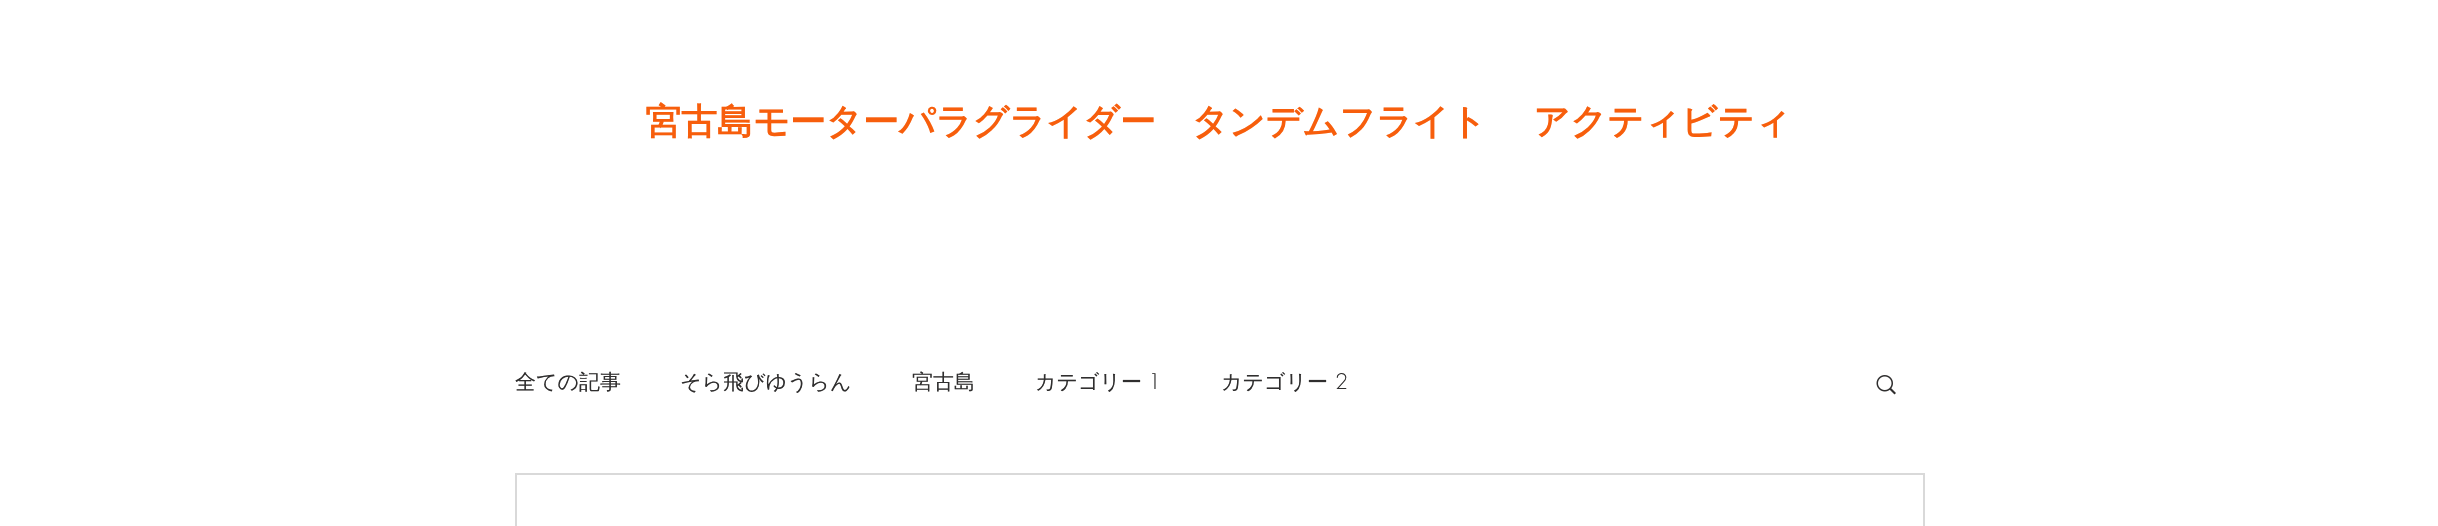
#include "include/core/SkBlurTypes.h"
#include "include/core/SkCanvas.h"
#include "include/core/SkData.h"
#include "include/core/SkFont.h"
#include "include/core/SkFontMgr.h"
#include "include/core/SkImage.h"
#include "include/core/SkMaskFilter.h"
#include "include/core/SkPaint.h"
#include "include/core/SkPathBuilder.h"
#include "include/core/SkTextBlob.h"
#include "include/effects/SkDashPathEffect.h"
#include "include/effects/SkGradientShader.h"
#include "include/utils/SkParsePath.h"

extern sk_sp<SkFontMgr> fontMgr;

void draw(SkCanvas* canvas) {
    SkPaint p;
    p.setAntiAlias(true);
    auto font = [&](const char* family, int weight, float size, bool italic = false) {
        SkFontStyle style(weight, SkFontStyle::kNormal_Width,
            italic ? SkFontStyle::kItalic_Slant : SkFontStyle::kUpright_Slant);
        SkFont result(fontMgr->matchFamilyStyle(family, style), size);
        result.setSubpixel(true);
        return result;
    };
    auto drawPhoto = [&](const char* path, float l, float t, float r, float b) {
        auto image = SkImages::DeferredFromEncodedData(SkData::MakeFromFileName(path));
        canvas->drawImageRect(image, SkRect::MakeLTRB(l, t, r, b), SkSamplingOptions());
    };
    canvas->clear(0xFFFFFFFF);
    auto font1 = font("WenQuanYi Zen Hei", 700, 36);
    p.setColor(0xFFF75E0C);
    canvas->drawString("宮古島モーターパラグライダー　タンデムフライト 　アクティビティ", 645, 134, font1, p);
    auto font2 = font("WenQuanYi Zen Hei", 500, 21);
    p.setColor(0xFF2F2E2E);
    {
        const struct { const char* s; float x, y; } items[] = {
            {"全ての記事", 515, 389},
            {"そら飛びゆうらん", 680, 389},
            {"宮古島", 912, 389},
            {"カテゴリー", 1035, 389},
        };
        for (auto [s, x, y] : items) {
            canvas->drawString(s, x, y, font2, p);
        }
    }
    auto font3 = font("futura", 300, 21);
    canvas->drawString("1", 1148, 389, font3, p);
    canvas->drawString("カテゴリー", 1221, 389, font2, p);
    canvas->drawString("2", 1335, 389, font3, p);
    drawPhoto("media/1.png", 1876, 375, 1896, 395);
    p.setStyle(SkPaint::kStroke_Style);
    p.setStrokeWidth(2);
    p.setColor(0xFFD9D9D9);
    canvas->drawRect(SkRect::MakeLTRB(516, 474, 1924, 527), p);
}
